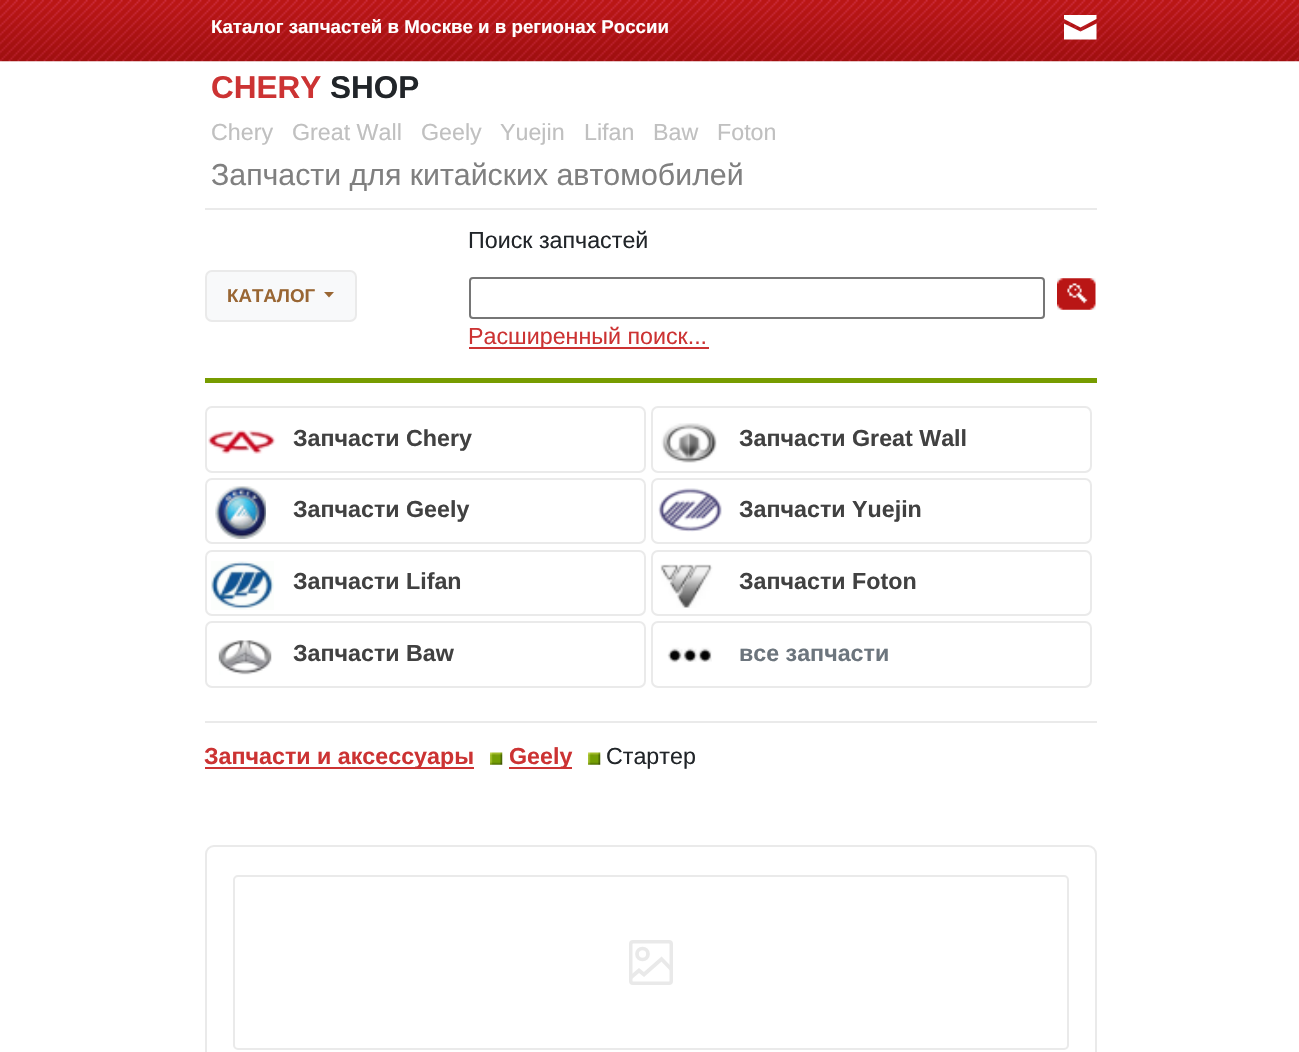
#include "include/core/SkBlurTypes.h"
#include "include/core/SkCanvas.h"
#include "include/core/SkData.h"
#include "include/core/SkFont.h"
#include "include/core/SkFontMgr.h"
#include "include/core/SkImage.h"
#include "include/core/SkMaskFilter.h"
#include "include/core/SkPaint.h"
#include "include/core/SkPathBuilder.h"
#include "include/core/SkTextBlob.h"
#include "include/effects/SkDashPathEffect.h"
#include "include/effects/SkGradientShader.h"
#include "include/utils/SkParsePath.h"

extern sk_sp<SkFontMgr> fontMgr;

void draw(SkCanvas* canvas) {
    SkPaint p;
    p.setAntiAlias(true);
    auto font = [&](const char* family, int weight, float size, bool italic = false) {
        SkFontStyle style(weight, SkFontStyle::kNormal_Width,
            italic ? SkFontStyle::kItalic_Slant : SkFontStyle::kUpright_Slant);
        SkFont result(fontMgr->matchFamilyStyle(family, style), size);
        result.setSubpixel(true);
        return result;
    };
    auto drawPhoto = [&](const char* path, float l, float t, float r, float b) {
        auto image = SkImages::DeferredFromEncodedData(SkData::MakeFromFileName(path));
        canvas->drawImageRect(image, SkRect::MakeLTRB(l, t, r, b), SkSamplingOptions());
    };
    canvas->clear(0xFFFFFFFF);
    drawPhoto("media/1.png", 0, 0, 1299, 62);
    auto font1 = font("Liberation Sans", 700, 18.7f);
    p.setColor(0xFFFFFFFF);
    canvas->drawString("Каталог запчастей в Москве и в регионах России", 211, 33, font1, p);
    canvas->drawPath(SkPathBuilder().moveTo(1064, 15).lineTo(1096.5f, 15).lineTo(1096.5f, 19).lineTo(1080.5f, 27.5f).lineTo(1064, 19).close().moveTo(1064, 23.5f).lineTo(1080.5f, 31.5f).lineTo(1096.5f, 23.5f).lineTo(1096.5f, 39.5f).lineTo(1064, 39.5f).close().detach(), p);
    auto font2 = font("Liberation Sans", 700, 31.5f);
    p.setColor(0xFFCC3333);
    canvas->drawString("CHERY", 211, 98, font2, p);
    p.setColor(0xFF212529);
    canvas->drawString("SHOP", 330, 98, font2, p);
    auto font3 = font("Liberation Sans", 400, 23.25f);
    p.setColor(0xFFC0C0C0);
    {
        const struct { const char* s; float x, y; } items[] = {
            {"Chery", 211, 140},
            {"Great Wall", 292, 140},
            {"Geely", 421, 140},
            {"Yuejin", 500, 140},
            {"Lifan", 584, 140},
            {"Baw", 653, 140},
            {"Foton", 717, 140},
        };
        for (auto [s, x, y] : items) {
            canvas->drawString(s, x, y, font3, p);
        }
    }
    auto font4 = font("Liberation Sans", 400, 30.3f);
    p.setColor(0xFF808080);
    canvas->drawString("Запчасти для китайских автомобилей", 211, 185, font4, p);
    p.setColor(0xFFEAEAEA);
    canvas->drawRect(SkRect::MakeLTRB(205, 208, 1097, 210), p);
    p.setColor(0xFFF8F9FA);
    canvas->drawRoundRect(SkRect::MakeLTRB(206, 271, 356, 321), 6, 6, p);
    p.setStyle(SkPaint::kStroke_Style);
    p.setStrokeWidth(2);
    p.setColor(0xFFEAEAEA);
    canvas->drawRoundRect(SkRect::MakeLTRB(206, 271, 356, 321), 6, 6, p);
    p.setStyle(SkPaint::kFill_Style);
    p.setColor(0xFF996633);
    canvas->drawString("КАТАЛОГ", 227, 302, font1, p);
    canvas->drawPath(SkPathBuilder().moveTo(324, 292).lineTo(334, 292).lineTo(329, 297.5f).close().detach(), p);
    p.setColor(0xFF212529);
    canvas->drawString("Поиск запчастей", 468, 248, font3, p);
    p.setStyle(SkPaint::kStroke_Style);
    p.setColor(0xFF767676);
    canvas->drawRoundRect(SkRect::MakeLTRB(470, 278, 1044, 318), 3, 3, p);
    drawPhoto("media/2.png", 1057, 278, 1096, 310);
    p.setStyle(SkPaint::kFill_Style);
    p.setColor(0xFFCC3333);
    canvas->drawRect(SkRect::MakeLTRB(469, 347, 709, 349), p);
    canvas->drawString("Расширенный поиск...", 468, 344, font3, p);
    p.setColor(0xFF779C00);
    canvas->drawRect(SkRect::MakeLTRB(205, 378, 1097, 383), p);
    drawPhoto("media/3.png", 208, 430, 276, 454);
    p.setStyle(SkPaint::kStroke_Style);
    p.setColor(0xFFEAEAEA);
    canvas->drawRoundRect(SkRect::MakeLTRB(206, 407, 645, 472), 6, 6, p);
    auto font5 = font("Liberation Sans", 700, 23.25f);
    p.setStyle(SkPaint::kFill_Style);
    p.setColor(0xFF414141);
    canvas->drawString("Запчасти Chery", 293, 446, font5, p);
    drawPhoto("media/4.png", 661, 423, 717, 463);
    p.setStyle(SkPaint::kStroke_Style);
    p.setColor(0xFFEAEAEA);
    canvas->drawRoundRect(SkRect::MakeLTRB(652, 407, 1091, 472), 6, 6, p);
    p.setStyle(SkPaint::kFill_Style);
    p.setColor(0xFF414141);
    canvas->drawString("Запчасти Great Wall", 739, 446, font5, p);
    drawPhoto("media/5.png", 215, 486, 266, 539);
    p.setStyle(SkPaint::kStroke_Style);
    p.setColor(0xFFEAEAEA);
    canvas->drawRoundRect(SkRect::MakeLTRB(206, 479, 645, 543), 6, 6, p);
    p.setStyle(SkPaint::kFill_Style);
    p.setColor(0xFF414141);
    canvas->drawString("Запчасти Geely", 293, 517, font5, p);
    drawPhoto("media/6.png", 658, 488, 722, 532);
    p.setStyle(SkPaint::kStroke_Style);
    p.setColor(0xFFEAEAEA);
    canvas->drawRoundRect(SkRect::MakeLTRB(652, 479, 1091, 543), 6, 6, p);
    p.setStyle(SkPaint::kFill_Style);
    p.setColor(0xFF414141);
    canvas->drawString("Запчасти Yuejin", 739, 517, font5, p);
    drawPhoto("media/7.png", 211, 561, 274, 610);
    p.setStyle(SkPaint::kStroke_Style);
    p.setColor(0xFFEAEAEA);
    canvas->drawRoundRect(SkRect::MakeLTRB(206, 551, 645, 615), 6, 6, p);
    p.setStyle(SkPaint::kFill_Style);
    p.setColor(0xFF414141);
    canvas->drawString("Запчасти Lifan", 293, 589, font5, p);
    drawPhoto("media/8.png", 660, 564, 713, 608);
    p.setStyle(SkPaint::kStroke_Style);
    p.setColor(0xFFEAEAEA);
    canvas->drawRoundRect(SkRect::MakeLTRB(652, 551, 1091, 615), 6, 6, p);
    p.setStyle(SkPaint::kFill_Style);
    p.setColor(0xFF414141);
    canvas->drawString("Запчасти Foton", 739, 589, font5, p);
    drawPhoto("media/9.png", 218, 640, 272, 675);
    p.setStyle(SkPaint::kStroke_Style);
    p.setColor(0xFFEAEAEA);
    canvas->drawRoundRect(SkRect::MakeLTRB(206, 622, 645, 687), 6, 6, p);
    p.setStyle(SkPaint::kFill_Style);
    p.setColor(0xFF414141);
    canvas->drawString("Запчасти Baw", 293, 661, font5, p);
    drawPhoto("media/10.png", 667, 647, 712, 663);
    p.setStyle(SkPaint::kStroke_Style);
    p.setColor(0xFFEAEAEA);
    canvas->drawRoundRect(SkRect::MakeLTRB(652, 622, 1091, 687), 6, 6, p);
    p.setStyle(SkPaint::kFill_Style);
    p.setColor(0xFF6C757D);
    canvas->drawString("все запчасти", 739, 661, font5, p);
    p.setColor(0xFFEAEAEA);
    canvas->drawRect(SkRect::MakeLTRB(205, 721, 1097, 723), p);
    p.setColor(0xFFCC3333);
    canvas->drawRect(SkRect::MakeLTRB(205, 767, 474, 769), p);
    canvas->drawString("Запчасти и аксессуары", 204, 764, font5, p);
    drawPhoto("media/11.png", 490, 752, 503, 765);
    canvas->drawRect(SkRect::MakeLTRB(509, 767, 572, 769), p);
    canvas->drawString("Geely", 509, 764, font5, p);
    drawPhoto("media/11.png", 588, 752, 601, 765);
    p.setColor(0xFF212529);
    canvas->drawString("Стартер", 606, 764, font3, p);
    p.setStyle(SkPaint::kStroke_Style);
    p.setColor(0xFFEAEAEA);
    canvas->drawRoundRect(SkRect::MakeLTRB(206, 846, 1096, 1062), 8, 8, p);
    canvas->drawRoundRect(SkRect::MakeLTRB(234, 876, 1068, 1049), 4, 4, p);
    p.setStrokeWidth(3.5f);
    p.setColor(0xFFE9E9E9);
    canvas->drawRoundRect(SkRect::MakeLTRB(630.75f, 941.75f, 671.25f, 983.25f), 2.25f, 2.25f, p);
    canvas->save();
    canvas->clipRect(SkRect::MakeLTRB(629, 940, 673, 985));
    p.setStrokeWidth(3.7f);
    canvas->drawPath(SkPathBuilder().moveTo(629.5f, 978.5f).lineTo(639, 970.5f).lineTo(644, 974.5f).lineTo(661.5f, 959).lineTo(672.5f, 970.5f).detach(), p);
    canvas->restore();
    canvas->drawCircle(642.5f, 954, 5.5f, p);
}
